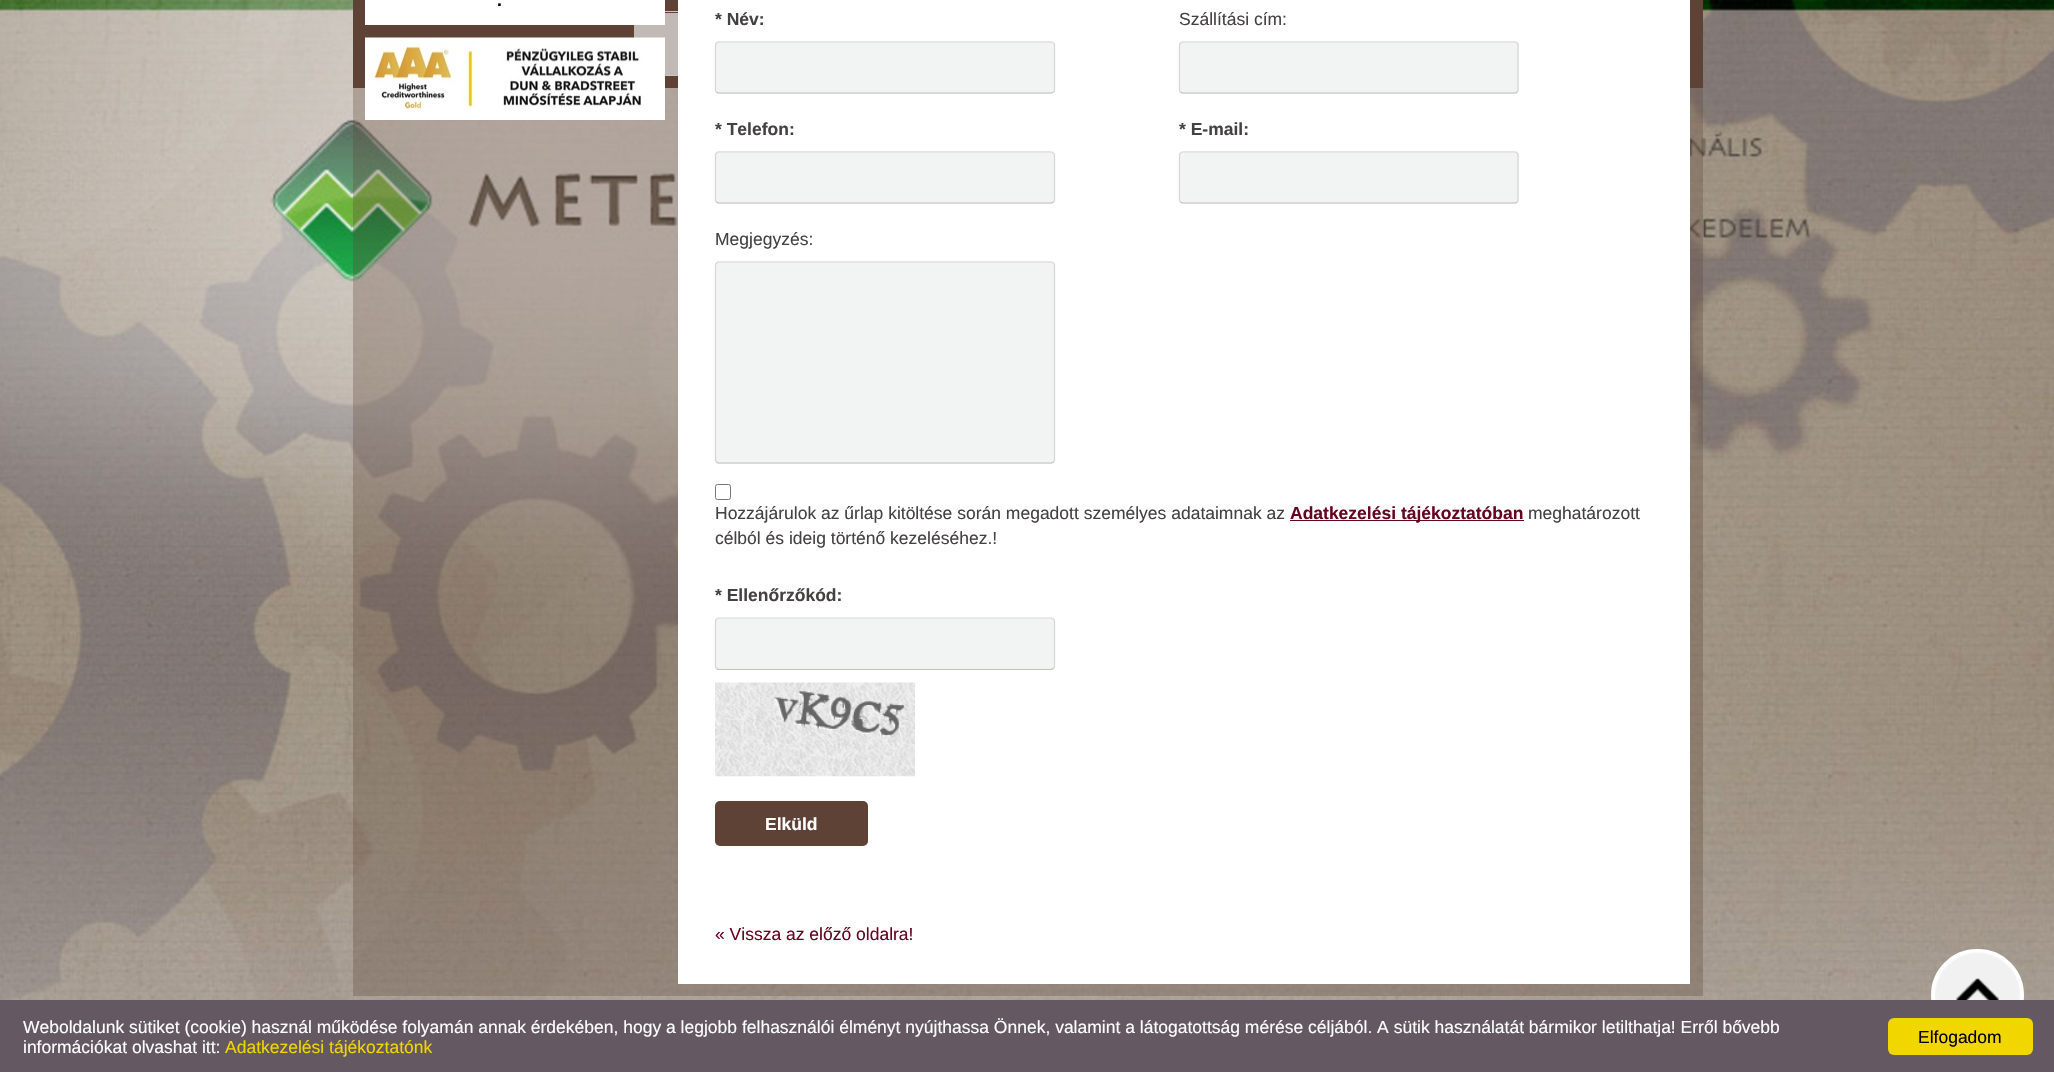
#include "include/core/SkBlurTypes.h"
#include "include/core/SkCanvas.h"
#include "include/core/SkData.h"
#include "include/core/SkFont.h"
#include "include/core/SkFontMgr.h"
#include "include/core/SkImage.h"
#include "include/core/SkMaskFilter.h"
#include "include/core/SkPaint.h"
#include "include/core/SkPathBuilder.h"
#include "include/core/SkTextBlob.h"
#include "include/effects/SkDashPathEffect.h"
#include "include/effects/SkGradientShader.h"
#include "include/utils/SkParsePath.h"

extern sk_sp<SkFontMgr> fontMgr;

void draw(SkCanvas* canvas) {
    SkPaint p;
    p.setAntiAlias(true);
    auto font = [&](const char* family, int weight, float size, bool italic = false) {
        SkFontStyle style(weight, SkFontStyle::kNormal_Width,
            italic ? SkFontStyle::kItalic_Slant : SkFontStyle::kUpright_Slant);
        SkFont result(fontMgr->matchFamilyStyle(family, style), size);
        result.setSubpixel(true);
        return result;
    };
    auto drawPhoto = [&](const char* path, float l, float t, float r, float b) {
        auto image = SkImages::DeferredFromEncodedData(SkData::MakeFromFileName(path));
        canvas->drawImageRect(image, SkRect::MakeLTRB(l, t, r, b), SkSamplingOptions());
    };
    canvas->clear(0xFFFFFFFF);
    drawPhoto("media/1.png", 0, 0, 2054, 1000);
    {
        const struct { float l, t, r, b; SkColor color; } items[] = {
            {353, 0, 1703, 88, 0xFF5E4236},
            {665, 11, 678, 12, 0xFFFFFFFF},
            {665, 75, 678, 76, 0xFFFFFFFF},
            {634, 13, 678, 75, 0xFFEDEDED},
            {353, 11, 1703, 996, 0x4D5E4236},
            {365, 0, 665, 25, 0xFFFFFFFF},
        };
        for (auto [l, t, r, b, color] : items) {
            p.setColor(color);
            canvas->drawRect(SkRect::MakeLTRB(l, t, r, b), p);
        }
    }
    auto font1 = font("Liberation Sans", 700, 17.5f);
    p.setColor(0xFF000000);
    canvas->drawString(".", 497, 6, font1, p);
    drawPhoto("media/2.png", 365, 37, 665, 120);
    p.setColor(0xFFFFFFFF);
    canvas->drawRect(SkRect::MakeLTRB(678, 0, 1690, 984), p);
    p.setColor(0xFF444141);
    canvas->drawString("* Név:", 715, 25, font1, p);
    p.setColor(0xFFF2F3F3);
    canvas->drawRoundRect(SkRect::MakeLTRB(715, 41, 1055, 94), 4, 4, p);
    p.setStyle(SkPaint::kStroke_Style);
    p.setStrokeWidth(1.2f);
    p.setColor(0xFFDDDAD6);
    canvas->drawPath(SkPathBuilder().moveTo(716.5f, 43).lineTo(718, 42).lineTo(829.5f, 42).lineTo(1051, 42).lineTo(1053.5f, 43).detach(), p);
    p.setColor(0xFFD8D5D2);
    canvas->drawPath(SkPathBuilder().moveTo(1053.5f, 43).lineTo(1054.5f, 44.5f).lineTo(1054.5f, 90.5f).lineTo(1053.5f, 92).detach(), p);
    p.setColor(0xFFC4C0BC);
    canvas->drawPath(SkPathBuilder().moveTo(1053.5f, 92).lineTo(1051, 93).lineTo(718, 93).lineTo(716.5f, 92).detach(), p);
    p.setColor(0xFFD8D5D2);
    canvas->drawPath(SkPathBuilder().moveTo(716.5f, 92).lineTo(715.5f, 90.5f).lineTo(715.5f, 44.5f).lineTo(716.5f, 43).detach(), p);
    auto font2 = font("Liberation Sans", 400, 17.5f);
    p.setStyle(SkPaint::kFill_Style);
    p.setColor(0xFF444141);
    canvas->drawString("Szállítási cím:", 1179, 25, font2, p);
    p.setColor(0xFFF2F3F3);
    canvas->drawRoundRect(SkRect::MakeLTRB(1179, 41, 1519, 94), 4, 4, p);
    p.setStyle(SkPaint::kStroke_Style);
    p.setColor(0xFFDDDAD6);
    canvas->drawPath(SkPathBuilder().moveTo(1180.5f, 43).lineTo(1182.5f, 42).lineTo(1515.5f, 42).lineTo(1517, 43).detach(), p);
    p.setColor(0xFFD8D5D2);
    canvas->drawPath(SkPathBuilder().moveTo(1517, 43).lineTo(1518, 44.5f).lineTo(1518, 90.5f).lineTo(1517, 92).detach(), p);
    p.setColor(0xFFC4C0BC);
    canvas->drawPath(SkPathBuilder().moveTo(1517, 92).lineTo(1515.5f, 93).lineTo(1404, 93).lineTo(1182.5f, 93).lineTo(1180.5f, 92).detach(), p);
    p.setColor(0xFFD8D5D2);
    canvas->drawPath(SkPathBuilder().moveTo(1180.5f, 92).lineTo(1179.5f, 90.5f).lineTo(1179.5f, 44.5f).lineTo(1180.5f, 43).detach(), p);
    p.setStyle(SkPaint::kFill_Style);
    p.setColor(0xFF444141);
    canvas->drawString("* Telefon:", 715, 135, font1, p);
    p.setColor(0xFFF2F3F3);
    canvas->drawRoundRect(SkRect::MakeLTRB(715, 151, 1055, 204), 4, 4, p);
    p.setStyle(SkPaint::kStroke_Style);
    p.setColor(0xFFDDDAD6);
    canvas->drawPath(SkPathBuilder().moveTo(716.5f, 153).lineTo(718, 152).lineTo(829.5f, 152).lineTo(1051, 152).lineTo(1053.5f, 153).detach(), p);
    p.setColor(0xFFD8D5D2);
    canvas->drawPath(SkPathBuilder().moveTo(1053.5f, 153).lineTo(1054.5f, 154.5f).lineTo(1054.5f, 200.5f).lineTo(1053.5f, 202).detach(), p);
    p.setColor(0xFFC4C0BC);
    canvas->drawPath(SkPathBuilder().moveTo(1053.5f, 202).lineTo(1051, 203).lineTo(718, 203).lineTo(716.5f, 202).detach(), p);
    p.setColor(0xFFD8D5D2);
    canvas->drawPath(SkPathBuilder().moveTo(716.5f, 202).lineTo(715.5f, 200.5f).lineTo(715.5f, 154.5f).lineTo(716.5f, 153).detach(), p);
    p.setStyle(SkPaint::kFill_Style);
    p.setColor(0xFF444141);
    canvas->drawString("* E-mail:", 1179, 135, font1, p);
    p.setColor(0xFFF2F3F3);
    canvas->drawRoundRect(SkRect::MakeLTRB(1179, 151, 1519, 204), 4, 4, p);
    p.setStyle(SkPaint::kStroke_Style);
    p.setColor(0xFFDDDAD6);
    canvas->drawPath(SkPathBuilder().moveTo(1180.5f, 153).lineTo(1182.5f, 152).lineTo(1515.5f, 152).lineTo(1517, 153).detach(), p);
    p.setColor(0xFFD8D5D2);
    canvas->drawPath(SkPathBuilder().moveTo(1517, 153).lineTo(1518, 154.5f).lineTo(1518, 200.5f).lineTo(1517, 202).detach(), p);
    p.setColor(0xFFC4C0BC);
    canvas->drawPath(SkPathBuilder().moveTo(1517, 202).lineTo(1515.5f, 203).lineTo(1404, 203).lineTo(1182.5f, 203).lineTo(1180.5f, 202).detach(), p);
    p.setColor(0xFFD8D5D2);
    canvas->drawPath(SkPathBuilder().moveTo(1180.5f, 202).lineTo(1179.5f, 200.5f).lineTo(1179.5f, 154.5f).lineTo(1180.5f, 153).detach(), p);
    p.setStyle(SkPaint::kFill_Style);
    p.setColor(0xFF444141);
    canvas->drawString("Megjegyzés:", 715, 245, font2, p);
    p.setColor(0xFFF2F3F3);
    canvas->drawRoundRect(SkRect::MakeLTRB(715, 261, 1055, 464), 4, 4, p);
    p.setStyle(SkPaint::kStroke_Style);
    p.setColor(0xFFDDDAD6);
    canvas->drawPath(SkPathBuilder().moveTo(716.5f, 263).lineTo(718, 262).lineTo(829.5f, 262).lineTo(1051, 262).lineTo(1053.5f, 263).detach(), p);
    p.setColor(0xFFD8D5D2);
    canvas->drawPath(SkPathBuilder().moveTo(1053.5f, 263).lineTo(1054.5f, 265).lineTo(1054.5f, 460).lineTo(1053.5f, 462).detach(), p);
    p.setColor(0xFFC4C0BC);
    canvas->drawPath(SkPathBuilder().moveTo(1053.5f, 462).lineTo(1051, 463).lineTo(718, 463).lineTo(716.5f, 462).detach(), p);
    p.setColor(0xFFD8D5D2);
    canvas->drawPath(SkPathBuilder().moveTo(716.5f, 462).lineTo(715.5f, 460).lineTo(715.5f, 265).lineTo(716.5f, 263).detach(), p);
    p.setStrokeWidth(1);
    p.setColor(0xFF767676);
    canvas->drawRoundRect(SkRect::MakeLTRB(715.5f, 484.5f, 730.5f, 499.5f), 2, 2, p);
    p.setStyle(SkPaint::kFill_Style);
    p.setColor(0xFF444141);
    canvas->drawString("Hozzájárulok az űrlap kitöltése során megadott személyes adataimnak az", 715, 519, font2, p);
    p.setColor(0xFF66041F);
    canvas->drawRect(SkRect::MakeLTRB(1290, 520, 1524, 521), p);
    canvas->drawString("Adatkezelési tájékoztatóban", 1290, 519, font1, p);
    p.setColor(0xFF444141);
    canvas->drawString("meghatározott", 1528, 519, font2, p);
    canvas->drawString("célból és ideig történő kezeléséhez.!", 715, 544, font2, p);
    canvas->drawString("* Ellenőrzőkód:", 715, 601, font1, p);
    p.setColor(0xFFF2F3F3);
    canvas->drawRoundRect(SkRect::MakeLTRB(715, 618, 1055, 670), 4, 4, p);
    p.setStyle(SkPaint::kStroke_Style);
    p.setStrokeWidth(1.2f);
    p.setColor(0xFFDDDAD6);
    canvas->drawPath(SkPathBuilder().moveTo(716.5f, 619).lineTo(718, 618).lineTo(829.5f, 618).lineTo(1051, 618).lineTo(1053.5f, 619).detach(), p);
    p.setColor(0xFFD8D5D2);
    canvas->drawPath(SkPathBuilder().moveTo(1053.5f, 619).lineTo(1054.5f, 621).lineTo(1054.5f, 666.5f).lineTo(1053.5f, 668.5f).detach(), p);
    p.setColor(0xFFC4C0BC);
    canvas->drawPath(SkPathBuilder().moveTo(1053.5f, 668.5f).lineTo(1051, 669.5f).lineTo(718, 669.5f).lineTo(716.5f, 668.5f).detach(), p);
    p.setColor(0xFFD8D5D2);
    canvas->drawPath(SkPathBuilder().moveTo(716.5f, 668.5f).lineTo(715.5f, 666.5f).lineTo(715.5f, 621).lineTo(716.5f, 619).detach(), p);
    drawPhoto("media/3.png", 715, 682, 915, 777);
    p.setStyle(SkPaint::kFill_Style);
    p.setColor(0xFF5E4236);
    canvas->drawRoundRect(SkRect::MakeLTRB(715, 801, 868, 846), 5, 5, p);
    p.setColor(0xFFFFFFFF);
    canvas->drawString("Elküld", 765, 830, font1, p);
    p.setColor(0xFF66041F);
    canvas->drawString("« Vissza az előző oldalra!", 715, 940, font2, p);
    p.setColor(0xFFFFFFFF);
    canvas->drawRoundRect(SkRect::MakeLTRB(1933, 951, 2022, 1039), 44, 44, p);
    p.setStyle(SkPaint::kStroke_Style);
    p.setStrokeWidth(4);
    canvas->drawRoundRect(SkRect::MakeLTRB(1933, 951, 2022, 1039), 44, 44, p);
    drawPhoto("media/4.png", 1935, 952, 2020, 1000);
    p.setStyle(SkPaint::kFill_Style);
    p.setColor(0xFF645862);
    canvas->drawRect(SkRect::MakeLTRB(0, 1000, 2054, 1072), p);
    p.setColor(0xFFFFFFFF);
    canvas->drawString("Weboldalunk sütiket (cookie) használ működése folyamán annak érdekében, hogy a legjobb felhasználói élményt nyújthassa Önnek, valamint a látogatottság mérése céljából. A sütik használatát bármikor letilthatja! Erről bővebb", 23, 1033, font2, p);
    canvas->drawString("információkat olvashat itt:", 23, 1053, font2, p);
    p.setColor(0xFFF1D600);
    canvas->drawString("Adatkezelési tájékoztatónk", 225, 1053, font2, p);
    canvas->drawRoundRect(SkRect::MakeLTRB(1888, 1018, 2033, 1055), 6, 6, p);
    p.setColor(0xFF000000);
    canvas->drawString("Elfogadom", 1918, 1043, font2, p);
}
